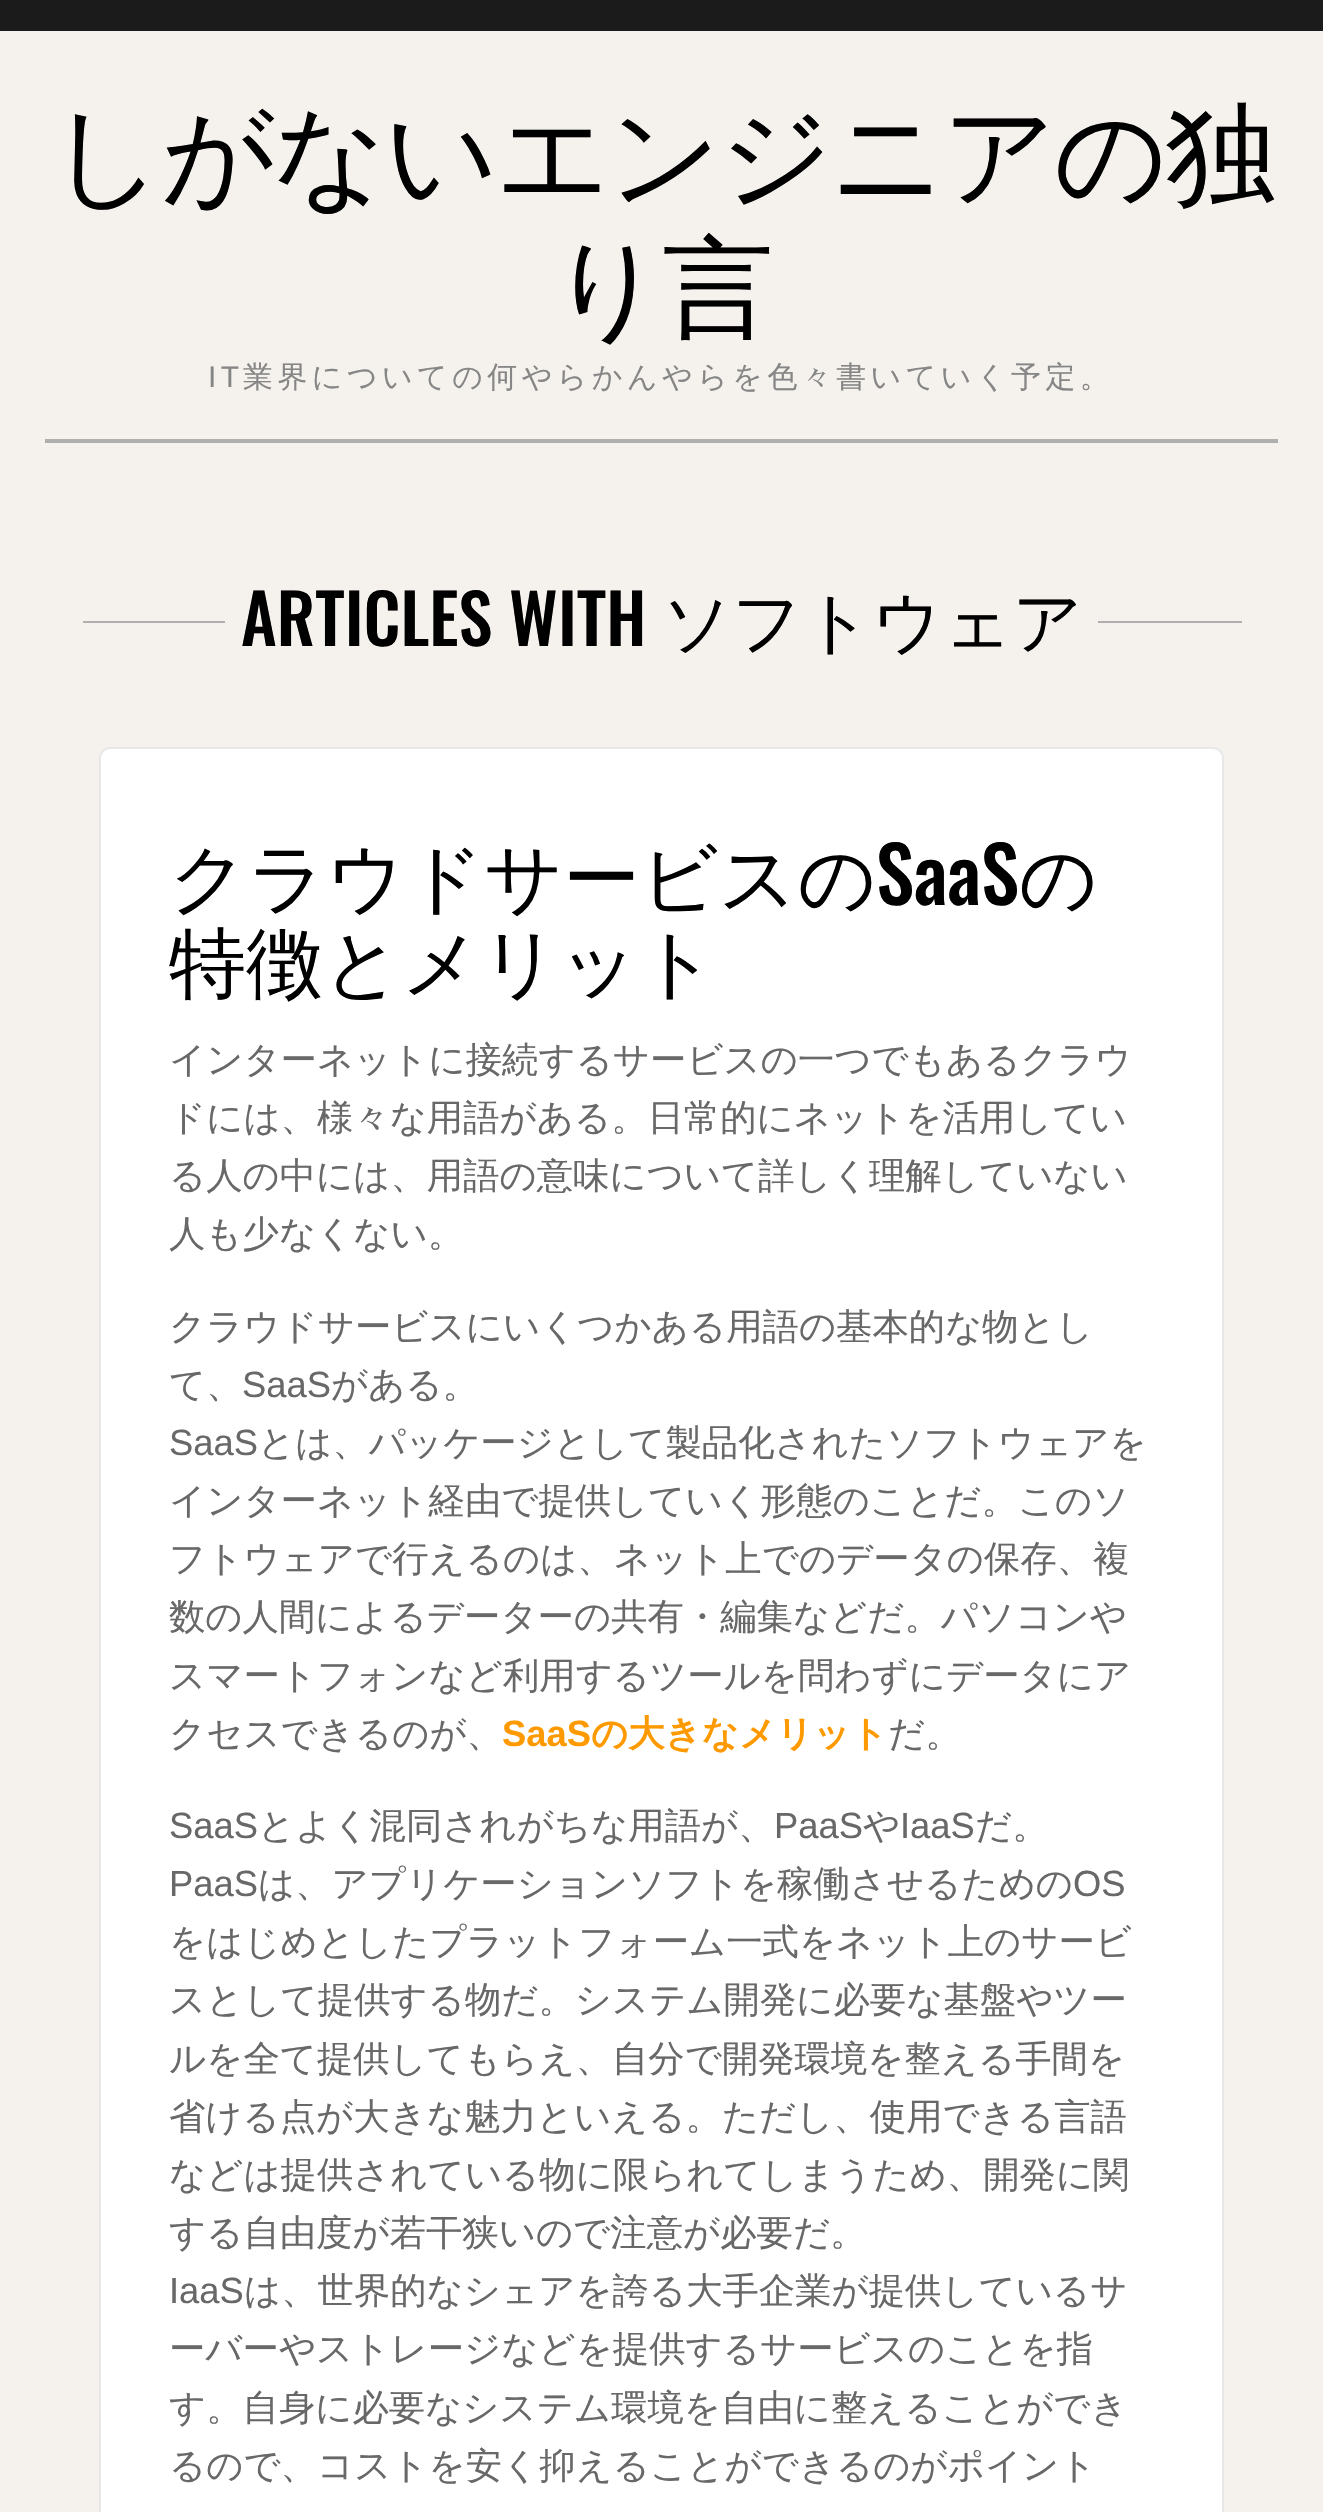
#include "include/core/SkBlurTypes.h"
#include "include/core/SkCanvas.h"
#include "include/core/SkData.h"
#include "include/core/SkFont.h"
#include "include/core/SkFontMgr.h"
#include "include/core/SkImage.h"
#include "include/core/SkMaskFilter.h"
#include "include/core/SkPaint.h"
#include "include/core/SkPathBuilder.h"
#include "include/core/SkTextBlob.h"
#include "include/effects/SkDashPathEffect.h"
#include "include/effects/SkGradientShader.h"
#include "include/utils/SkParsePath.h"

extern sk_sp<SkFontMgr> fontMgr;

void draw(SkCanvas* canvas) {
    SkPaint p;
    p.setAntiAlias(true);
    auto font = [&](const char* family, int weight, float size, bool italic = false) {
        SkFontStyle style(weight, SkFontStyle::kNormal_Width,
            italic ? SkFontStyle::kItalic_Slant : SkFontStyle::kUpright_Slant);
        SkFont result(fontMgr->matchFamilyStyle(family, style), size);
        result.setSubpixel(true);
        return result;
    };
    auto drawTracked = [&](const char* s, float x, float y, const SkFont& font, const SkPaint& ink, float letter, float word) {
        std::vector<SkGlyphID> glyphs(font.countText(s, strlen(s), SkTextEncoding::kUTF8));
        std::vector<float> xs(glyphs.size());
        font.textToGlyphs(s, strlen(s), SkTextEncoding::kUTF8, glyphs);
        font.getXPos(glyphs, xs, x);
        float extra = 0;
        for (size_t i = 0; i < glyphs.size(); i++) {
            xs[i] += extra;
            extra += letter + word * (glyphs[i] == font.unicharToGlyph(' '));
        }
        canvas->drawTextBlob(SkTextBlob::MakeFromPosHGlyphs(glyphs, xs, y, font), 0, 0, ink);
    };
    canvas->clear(0xFF1B1B1B);
    p.setColor(0xFFF5F2ED);
    canvas->drawRect(SkRect::MakeLTRB(0, 31, 1323, 2512), p);
    auto font1 = font("WenQuanYi Zen Hei", 500, 111.2f);
    p.setColor(0xFF000000);
    drawTracked("しがないエンジニアの独", 50, 194, font1, p, -2.25f, 0);
    drawTracked("り言", 551, 327, font1, p, -2.25f, 0);
    auto font2 = font("Liberation Sans", 400, 29.9f);
    p.setColor(0xFF868686);
    drawTracked("IT", 208, 387, font2, p, 4.5f, 0);
    auto font3 = font("WenQuanYi Zen Hei", 500, 29.9f);
    drawTracked("業界についての何やらかんやらを色々書いていく予定。", 243, 387, font3, p, 4.5f, 0);
    p.setColor(0xFFAFAFAF);
    canvas->drawRect(SkRect::MakeLTRB(45, 439, 1278, 443), p);
    canvas->drawRect(SkRect::MakeLTRB(83, 621, 225, 623), p);
    auto font4 = font("Oswald", 500, 68.5f);
    p.setColor(0xFF000000);
    canvas->drawString("ARTICLES WITH", 241, 646, font4, p);
    auto font5 = font("WenQuanYi Zen Hei", 500, 68.5f);
    canvas->drawString("ソフトウェア", 662, 646, font5, p);
    p.setColor(0xFFAFAFAF);
    canvas->drawRect(SkRect::MakeLTRB(1098, 621, 1242, 623), p);
    p.setColor(0xFFFFFFFF);
    canvas->drawRoundRect(SkRect::MakeLTRB(100, 748, 1223, 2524), 10, 10, p);
    p.setStyle(SkPaint::kStroke_Style);
    p.setStrokeWidth(2);
    p.setColor(0xFFE8E8E8);
    canvas->drawRoundRect(SkRect::MakeLTRB(100, 748, 1223, 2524), 10, 10, p);
    auto font6 = font("WenQuanYi Zen Hei", 500, 77);
    p.setStyle(SkPaint::kFill_Style);
    p.setColor(0xFF000000);
    canvas->drawString("クラウドサービスの", 169, 905, font6, p);
    auto font7 = font("Oswald", 500, 77);
    canvas->drawString("SaaS", 876, 905, font7, p);
    canvas->drawString("の", 1019, 905, font6, p);
    canvas->drawString("特徴とメリット", 169, 990, font6, p);
    auto font8 = font("WenQuanYi Zen Hei", 500, 36.35f);
    p.setColor(0xFF686868);
    {
        const struct { const char* s; float x, y; } items[] = {
            {"インターネットに接続するサービスの一つでもあるクラウ", 169, 1072},
            {"ドには、様々な用語がある。日常的にネットを活用してい", 169, 1130},
            {"る人の中には、用語の意味について詳しく理解していない", 169, 1188},
            {"人も少なくない。", 169, 1246},
            {"クラウドサービスにいくつかある用語の基本的な物とし", 169, 1339},
            {"て、", 169, 1397},
        };
        for (auto [s, x, y] : items) {
            canvas->drawString(s, x, y, font8, p);
        }
    }
    auto font9 = font("Liberation Sans", 400, 36.35f);
    canvas->drawString("SaaS", 242, 1397, font9, p);
    canvas->drawString("がある。", 331, 1397, font8, p);
    canvas->drawString("SaaS", 169, 1455, font9, p);
    {
        const struct { const char* s; float x, y; } items[] = {
            {"とは、パッケージとして製品化されたソフトウェアを", 258, 1455},
            {"インターネット経由で提供していく形態のことだ。このソ", 169, 1513},
            {"フトウェアで行えるのは、ネット上でのデータの保存、複", 169, 1571},
            {"数の人間によるデーターの共有・編集などだ。パソコンや", 169, 1629},
            {"スマートフォンなど利用するツールを問わずにデータにア", 169, 1688},
            {"クセスできるのが、", 169, 1746},
        };
        for (auto [s, x, y] : items) {
            canvas->drawString(s, x, y, font8, p);
        }
    }
    auto font10 = font("Liberation Sans", 700, 36.35f);
    p.setColor(0xFFFF9900);
    canvas->drawString("SaaS", 502, 1746, font10, p);
    auto font11 = font("WenQuanYi Zen Hei", 700, 36.35f);
    canvas->drawString("の大きなメリット", 591, 1746, font11, p);
    p.setColor(0xFF686868);
    canvas->drawString("だ。", 888, 1746, font8, p);
    canvas->drawString("SaaS", 169, 1838, font9, p);
    canvas->drawString("とよく混同されがちな用語が、", 258, 1838, font8, p);
    canvas->drawString("PaaS", 774, 1838, font9, p);
    canvas->drawString("や", 863, 1838, font8, p);
    canvas->drawString("IaaS", 900, 1838, font9, p);
    canvas->drawString("だ。", 975, 1838, font8, p);
    canvas->drawString("PaaS", 169, 1896, font9, p);
    canvas->drawString("は、アプリケーションソフトを稼働させるための", 258, 1896, font8, p);
    canvas->drawString("OS", 1073, 1896, font9, p);
    {
        const struct { const char* s; float x, y; } items[] = {
            {"をはじめとしたプラットフォーム一式をネット上のサービ", 169, 1954},
            {"スとして提供する物だ。システム開発に必要な基盤やツー", 169, 2012},
            {"ルを全て提供してもらえ、自分で開発環境を整える手間を", 169, 2071},
            {"省ける点が大きな魅力といえる。ただし、使用できる言語", 169, 2129},
            {"などは提供されている物に限られてしまうため、開発に関", 169, 2187},
            {"する自由度が若干狭いので注意が必要だ。", 169, 2245},
        };
        for (auto [s, x, y] : items) {
            canvas->drawString(s, x, y, font8, p);
        }
    }
    canvas->drawString("IaaS", 169, 2303, font9, p);
    {
        const struct { const char* s; float x, y; } items[] = {
            {"は、世界的なシェアを誇る大手企業が提供しているサ", 244, 2303},
            {"ーバーやストレージなどを提供するサービスのことを指", 169, 2361},
            {"す。自身に必要なシステム環境を自由に整えることができ", 169, 2420},
            {"るので、コストを安く抑えることができるのがポイント", 169, 2478},
        };
        for (auto [s, x, y] : items) {
            canvas->drawString(s, x, y, font8, p);
        }
    }
}
